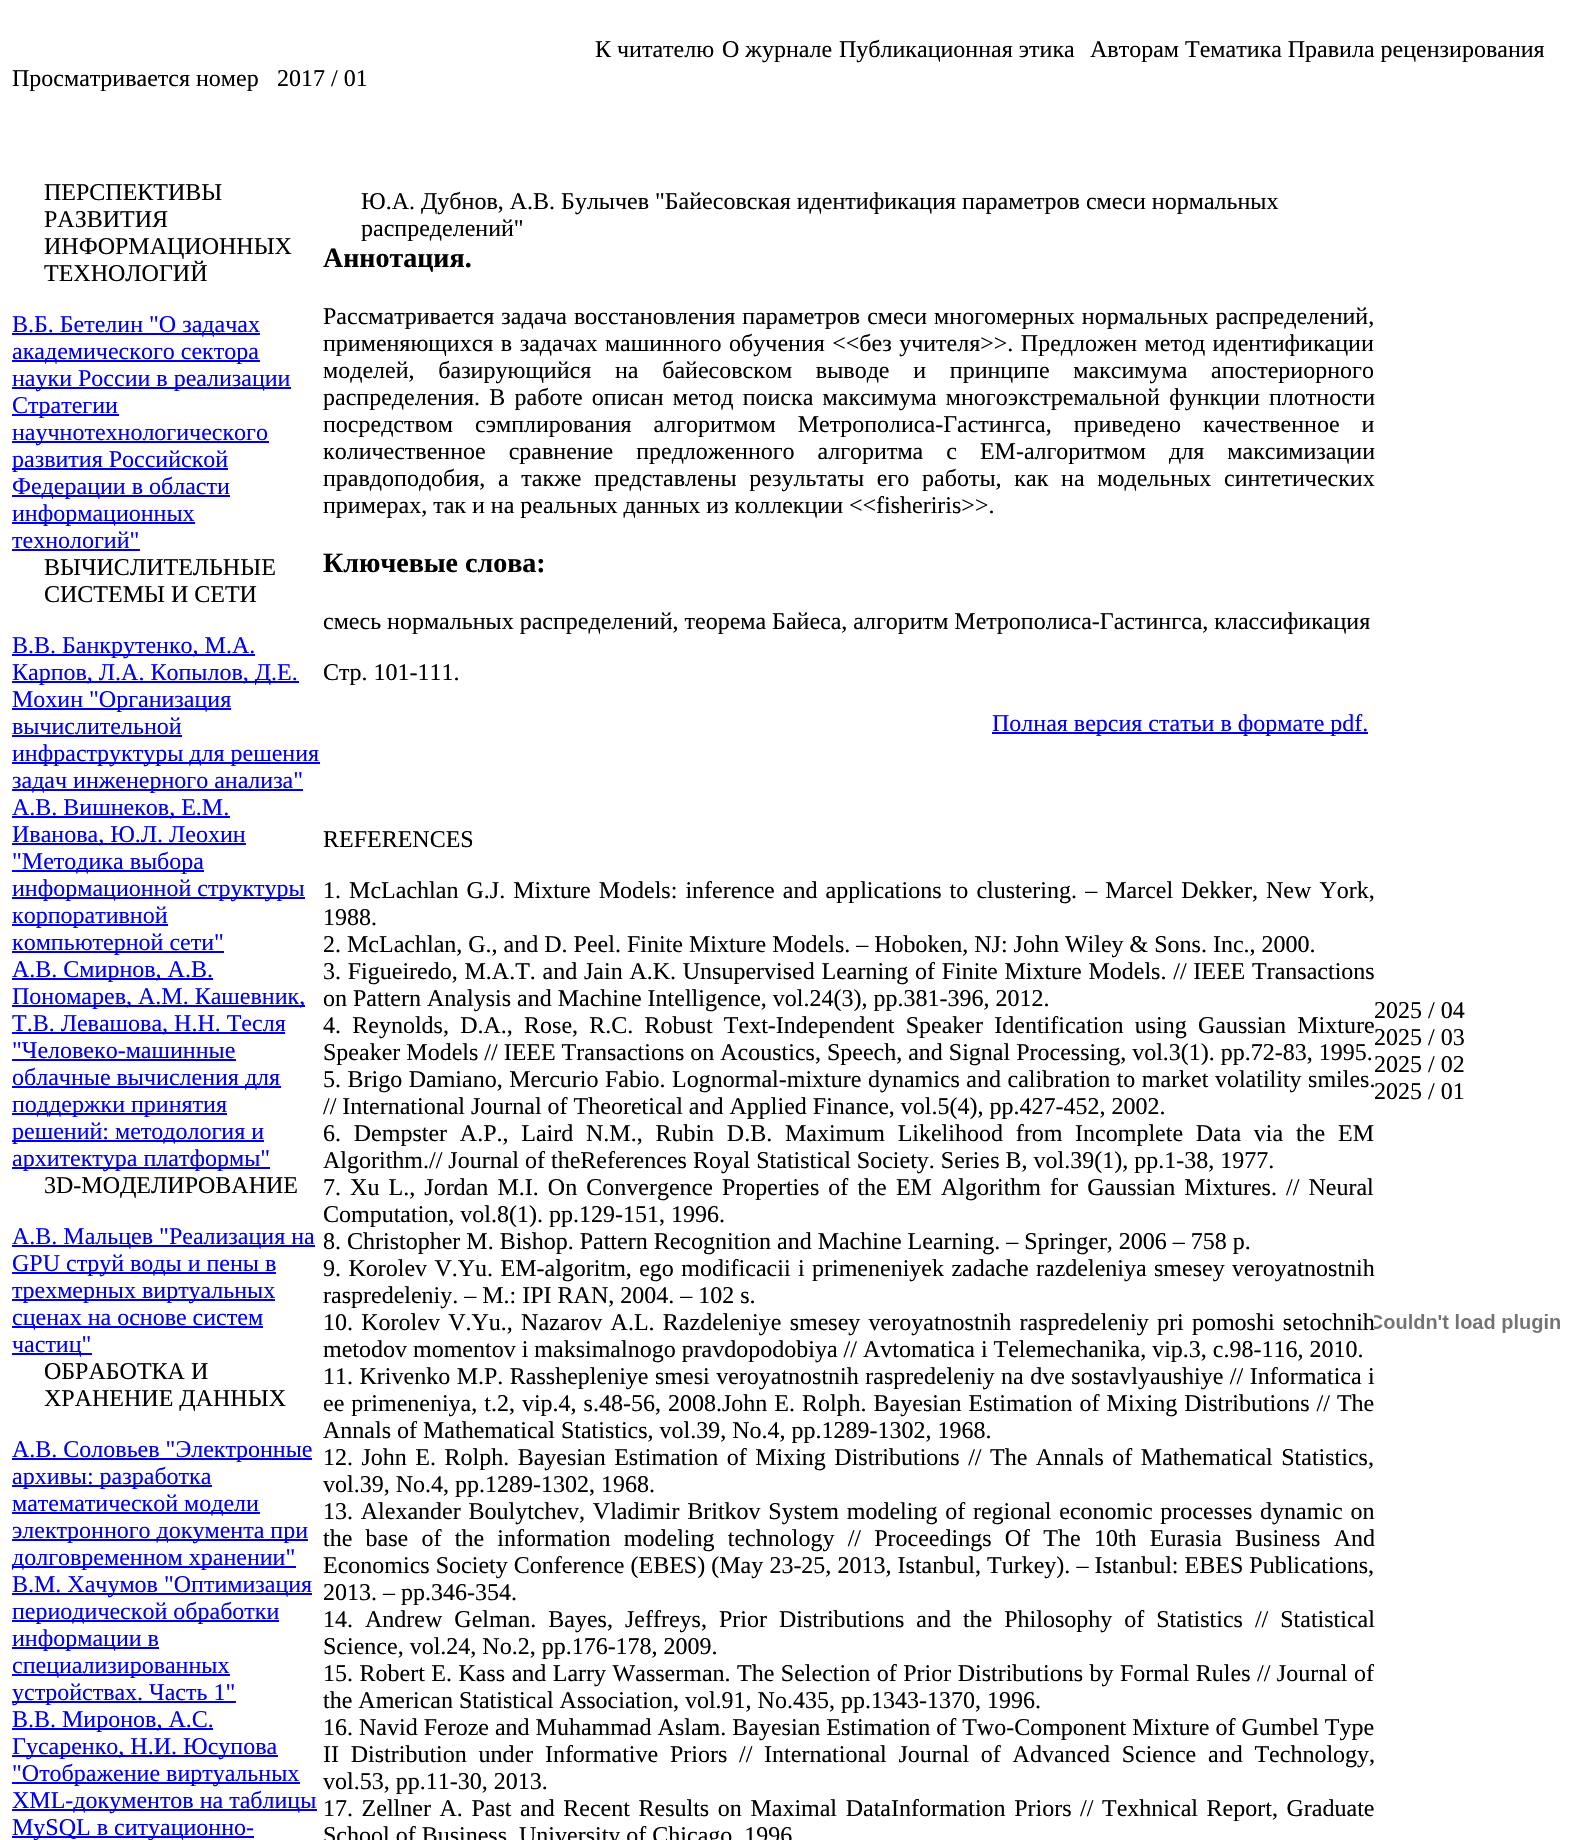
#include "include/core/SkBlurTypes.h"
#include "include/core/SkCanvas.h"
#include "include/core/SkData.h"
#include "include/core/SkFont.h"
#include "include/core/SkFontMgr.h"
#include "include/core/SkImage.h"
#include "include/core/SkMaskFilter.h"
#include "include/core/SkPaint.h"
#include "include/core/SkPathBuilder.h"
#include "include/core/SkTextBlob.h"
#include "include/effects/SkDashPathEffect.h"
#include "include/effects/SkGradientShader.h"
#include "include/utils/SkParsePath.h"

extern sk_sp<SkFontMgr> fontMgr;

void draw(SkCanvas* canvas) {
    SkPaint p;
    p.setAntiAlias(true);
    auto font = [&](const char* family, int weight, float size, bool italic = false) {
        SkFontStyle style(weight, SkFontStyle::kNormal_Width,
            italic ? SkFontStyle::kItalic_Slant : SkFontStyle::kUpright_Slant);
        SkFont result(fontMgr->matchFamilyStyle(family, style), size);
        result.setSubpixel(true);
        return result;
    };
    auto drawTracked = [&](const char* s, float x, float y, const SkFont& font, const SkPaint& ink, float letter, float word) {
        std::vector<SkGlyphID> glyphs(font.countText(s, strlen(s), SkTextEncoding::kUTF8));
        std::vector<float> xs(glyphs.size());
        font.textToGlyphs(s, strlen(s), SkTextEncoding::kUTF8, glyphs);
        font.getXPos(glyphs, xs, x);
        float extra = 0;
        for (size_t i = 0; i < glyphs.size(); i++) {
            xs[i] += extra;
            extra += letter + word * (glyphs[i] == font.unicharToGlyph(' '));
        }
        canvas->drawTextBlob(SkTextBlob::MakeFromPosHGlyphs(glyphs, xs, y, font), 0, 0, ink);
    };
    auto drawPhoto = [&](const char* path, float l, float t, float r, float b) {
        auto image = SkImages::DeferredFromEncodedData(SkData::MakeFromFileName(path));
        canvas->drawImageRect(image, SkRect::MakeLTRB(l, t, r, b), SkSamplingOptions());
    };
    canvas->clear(0xFFFFFFFF);
    auto font1 = font("Liberation Serif", 400, 24);
    p.setColor(0xFF000000);
    {
        const struct { const char* s; float x, y; } items[] = {
            {"К читателю", 595, 57},
            {"О журнале", 722, 57},
            {"Публикационная этика", 839, 57},
            {"Авторам Тематика Правила рецензирования", 1090, 57},
            {"Просматривается номер", 12, 86},
            {"2017 / 01", 277, 86},
            {"ПЕРСПЕКТИВЫ", 44, 200},
            {"РАЗВИТИЯ", 44, 227},
            {"ИНФОРМАЦИОННЫХ", 44, 254},
            {"ТЕХНОЛОГИЙ", 44, 281},
        };
        for (auto [s, x, y] : items) {
            canvas->drawString(s, x, y, font1, p);
        }
    }
    p.setColor(0xFF0000EE);
    canvas->drawRect(SkRect::MakeLTRB(12, 333, 260, 335), p);
    canvas->drawString("В.Б. Бетелин \"О задачах", 12, 332, font1, p);
    canvas->drawRect(SkRect::MakeLTRB(12, 360, 260, 362), p);
    canvas->drawString("академического сектора", 12, 359, font1, p);
    canvas->drawRect(SkRect::MakeLTRB(12, 387, 291, 389), p);
    canvas->drawString("науки России в реализации", 12, 386, font1, p);
    canvas->drawRect(SkRect::MakeLTRB(12, 414, 119, 416), p);
    canvas->drawString("Стратегии", 12, 413, font1, p);
    canvas->drawRect(SkRect::MakeLTRB(12, 441, 269, 443), p);
    canvas->drawString("научнотехнологического", 12, 440, font1, p);
    canvas->drawRect(SkRect::MakeLTRB(12, 468, 228, 470), p);
    canvas->drawString("развития Российской", 12, 467, font1, p);
    canvas->drawRect(SkRect::MakeLTRB(12, 495, 230, 497), p);
    canvas->drawString("Федерации в области", 12, 494, font1, p);
    canvas->drawRect(SkRect::MakeLTRB(12, 522, 195, 524), p);
    canvas->drawString("информационных", 12, 521, font1, p);
    canvas->drawString("технологий\"", 12, 548, font1, p);
    canvas->drawRect(SkRect::MakeLTRB(12, 549, 140, 551), p);
    p.setColor(0xFF000000);
    canvas->drawString("ВЫЧИСЛИТЕЛЬНЫЕ", 44, 575, font1, p);
    canvas->drawString("СИСТЕМЫ И СЕТИ", 44, 602, font1, p);
    p.setColor(0xFF0000EE);
    canvas->drawRect(SkRect::MakeLTRB(12, 654, 255, 656), p);
    canvas->drawString("В.В. Банкрутенко, М.А.", 12, 653, font1, p);
    canvas->drawRect(SkRect::MakeLTRB(12, 681, 299, 683), p);
    canvas->drawString("Карпов, Л.А. Копылов, Д.Е.", 12, 680, font1, p);
    canvas->drawRect(SkRect::MakeLTRB(12, 708, 231, 710), p);
    canvas->drawString("Мохин \"Организация", 12, 707, font1, p);
    canvas->drawString("вычислительной", 12, 734, font1, p);
    canvas->drawRect(SkRect::MakeLTRB(12, 735, 182, 737), p);
    canvas->drawRect(SkRect::MakeLTRB(12, 762, 320, 764), p);
    canvas->drawString("инфраструктуры для решения", 12, 761, font1, p);
    canvas->drawRect(SkRect::MakeLTRB(12, 789, 303, 791), p);
    canvas->drawString("задач инженерного анализа\"", 12, 788, font1, p);
    canvas->drawRect(SkRect::MakeLTRB(12, 816, 230, 818), p);
    canvas->drawString("А.В. Вишнеков, Е.М.", 12, 815, font1, p);
    canvas->drawRect(SkRect::MakeLTRB(12, 843, 246, 845), p);
    canvas->drawString("Иванова, Ю.Л. Леохин", 12, 842, font1, p);
    canvas->drawRect(SkRect::MakeLTRB(12, 870, 204, 872), p);
    canvas->drawString("\"Методика выбора", 12, 869, font1, p);
    canvas->drawRect(SkRect::MakeLTRB(12, 897, 305, 899), p);
    canvas->drawString("информационной структуры", 12, 896, font1, p);
    canvas->drawRect(SkRect::MakeLTRB(12, 924, 168, 926), p);
    canvas->drawString("корпоративной", 12, 923, font1, p);
    canvas->drawRect(SkRect::MakeLTRB(12, 951, 224, 953), p);
    canvas->drawString("компьютерной сети\"", 12, 950, font1, p);
    canvas->drawRect(SkRect::MakeLTRB(12, 978, 213, 980), p);
    canvas->drawString("А.В. Смирнов, А.В.", 12, 977, font1, p);
    canvas->drawRect(SkRect::MakeLTRB(12, 1005, 305, 1007), p);
    canvas->drawString("Пономарев, А.М. Кашевник,", 12, 1004, font1, p);
    canvas->drawRect(SkRect::MakeLTRB(12, 1032, 285, 1034), p);
    canvas->drawString("Т.В. Левашова, Н.Н. Тесля", 12, 1031, font1, p);
    canvas->drawString("\"Человеко-машинные", 12, 1058, font1, p);
    canvas->drawRect(SkRect::MakeLTRB(12, 1059, 236, 1061), p);
    canvas->drawRect(SkRect::MakeLTRB(12, 1086, 281, 1088), p);
    canvas->drawString("облачные вычисления для", 12, 1085, font1, p);
    canvas->drawRect(SkRect::MakeLTRB(12, 1113, 227, 1115), p);
    canvas->drawString("поддержки принятия", 12, 1112, font1, p);
    canvas->drawRect(SkRect::MakeLTRB(12, 1140, 264, 1142), p);
    canvas->drawString("решений: методология и", 12, 1139, font1, p);
    canvas->drawRect(SkRect::MakeLTRB(12, 1167, 270, 1169), p);
    canvas->drawString("архитектура платформы\"", 12, 1166, font1, p);
    p.setColor(0xFF000000);
    canvas->drawString("3D-МОДЕЛИРОВАНИЕ", 44, 1193, font1, p);
    p.setColor(0xFF0000EE);
    canvas->drawRect(SkRect::MakeLTRB(12, 1245, 315, 1247), p);
    canvas->drawString("А.В. Мальцев \"Реализация на", 12, 1244, font1, p);
    canvas->drawRect(SkRect::MakeLTRB(12, 1272, 276, 1274), p);
    canvas->drawString("GPU струй воды и пены в", 12, 1271, font1, p);
    canvas->drawRect(SkRect::MakeLTRB(12, 1299, 275, 1301), p);
    canvas->drawString("трехмерных виртуальных", 12, 1298, font1, p);
    canvas->drawRect(SkRect::MakeLTRB(12, 1326, 263, 1328), p);
    canvas->drawString("сценах на основе систем", 12, 1325, font1, p);
    canvas->drawRect(SkRect::MakeLTRB(12, 1353, 92, 1355), p);
    canvas->drawString("частиц\"", 12, 1352, font1, p);
    p.setColor(0xFF000000);
    canvas->drawString("ОБРАБОТКА И", 44, 1379, font1, p);
    canvas->drawString("ХРАНЕНИЕ ДАННЫХ", 44, 1406, font1, p);
    p.setColor(0xFF0000EE);
    canvas->drawRect(SkRect::MakeLTRB(12, 1458, 312, 1460), p);
    canvas->drawString("А.В. Соловьев \"Электронные", 12, 1457, font1, p);
    canvas->drawRect(SkRect::MakeLTRB(12, 1485, 212, 1487), p);
    canvas->drawString("архивы: разработка", 12, 1484, font1, p);
    canvas->drawRect(SkRect::MakeLTRB(12, 1512, 260, 1514), p);
    canvas->drawString("математической модели", 12, 1511, font1, p);
    canvas->drawRect(SkRect::MakeLTRB(12, 1539, 308, 1541), p);
    canvas->drawString("электронного документа при", 12, 1538, font1, p);
    canvas->drawRect(SkRect::MakeLTRB(12, 1566, 296, 1568), p);
    canvas->drawString("долговременном хранении\"", 12, 1565, font1, p);
    canvas->drawRect(SkRect::MakeLTRB(12, 1593, 312, 1595), p);
    canvas->drawString("В.М. Хачумов \"Оптимизация", 12, 1592, font1, p);
    canvas->drawRect(SkRect::MakeLTRB(12, 1620, 279, 1622), p);
    canvas->drawString("периодической обработки", 12, 1619, font1, p);
    canvas->drawRect(SkRect::MakeLTRB(12, 1647, 159, 1649), p);
    canvas->drawString("информации в", 12, 1646, font1, p);
    canvas->drawRect(SkRect::MakeLTRB(12, 1674, 230, 1676), p);
    canvas->drawString("специализированных", 12, 1673, font1, p);
    canvas->drawRect(SkRect::MakeLTRB(12, 1701, 236, 1703), p);
    canvas->drawString("устройствах. Часть 1\"", 12, 1700, font1, p);
    canvas->drawRect(SkRect::MakeLTRB(12, 1728, 213, 1730), p);
    canvas->drawString("В.В. Миронов, А.С.", 12, 1727, font1, p);
    canvas->drawRect(SkRect::MakeLTRB(12, 1755, 278, 1757), p);
    canvas->drawString("Гусаренко, Н.И. Юсупова", 12, 1754, font1, p);
    canvas->drawRect(SkRect::MakeLTRB(12, 1782, 300, 1784), p);
    canvas->drawString("\"Отображение виртуальных", 12, 1781, font1, p);
    canvas->drawRect(SkRect::MakeLTRB(12, 1809, 317, 1811), p);
    canvas->drawString("XML-документов на таблицы", 12, 1808, font1, p);
    canvas->drawRect(SkRect::MakeLTRB(12, 1836, 254, 1838), p);
    canvas->drawString("MySQL в ситуационно-", 12, 1835, font1, p);
    p.setColor(0xFF000000);
    canvas->drawString("Ю.А. Дубнов, А.В. Булычев \"Байесовская идентификация параметров смеси нормальных", 361, 209, font1, p);
    canvas->drawString("распределений\"", 361, 236, font1, p);
    auto font2 = font("Liberation Serif", 700, 28);
    canvas->drawString("Аннотация.", 323, 267, font2, p);
    drawTracked("Рассматривается задача восстановления параметров смеси многомерных нормальных распределений,", 323, 324, font1, p, 0, 1);
    drawTracked("применяющихся в задачах машинного обучения <<без учителя>>. Предложен метод идентификации", 323, 351, font1, p, 0, 1.5f);
    drawTracked("моделей, базирующийся на байесовском выводе и принципе максимума апостериорного", 323, 378, font1, p, 0, 17.75f);
    drawTracked("распределения. В работе описан метод поиска максимума многоэкстремальной функции плотности", 323, 405, font1, p, 0, 3.25f);
    drawTracked("посредством сэмплирования алгоритмом Метрополиса-Гастингса, приведено качественное и", 323, 432, font1, p, 0, 16);
    drawTracked("количественное сравнение предложенного алгоритма с EM-алгоритмом для максимизации", 323, 459, font1, p, 0, 17);
    drawTracked("правдоподобия, а также представлены результаты его работы, как на модельных синтетических", 323, 486, font1, p, 0, 6.75f);
    canvas->drawString("примерах, так и на реальных данных из коллекции <<fisheriris>>.", 323, 513, font1, p);
    canvas->drawString("Ключевые слова:", 323, 572, font2, p);
    canvas->drawString("смесь нормальных распределений, теорема Байеса, алгоритм Метрополиса-Гастингса, классификация", 323, 629, font1, p);
    canvas->drawString("Стр. 101-111.", 323, 680, font1, p);
    p.setColor(0xFF0000EE);
    canvas->drawRect(SkRect::MakeLTRB(992, 732, 1368, 734), p);
    canvas->drawString("Полная версия статьи в формате pdf.", 992, 731, font1, p);
    p.setColor(0xFF000000);
    canvas->drawString("REFERENCES", 323, 847, font1, p);
    drawTracked("1. McLachlan G.J. Mixture Models: inference and applications to clustering. – Marcel Dekker, New York,", 323, 898, font1, p, 0, 2.1f);
    canvas->drawString("1988.", 323, 925, font1, p);
    canvas->drawString("2. McLachlan, G., and D. Peel. Finite Mixture Models. – Hoboken, NJ: John Wiley & Sons. Inc., 2000.", 323, 952, font1, p);
    drawTracked("3. Figueiredo, M.A.T. and Jain A.K. Unsupervised Learning of Finite Mixture Models. // IEEE Transactions", 323, 979, font1, p, 0, 0.75f);
    canvas->drawString("on Pattern Analysis and Machine Intelligence, vol.24(3), pp.381-396, 2012.", 323, 1006, font1, p);
    drawTracked("4. Reynolds, D.A., Rose, R.C. Robust Text-Independent Speaker Identification using Gaussian Mixture", 323, 1033, font1, p, 0, 5.25f);
    canvas->drawString("Speaker Models // IEEE Transactions on Acoustics, Speech, and Signal Processing, vol.3(1). pp.72-83, 1995.", 323, 1060, font1, p);
    drawTracked("5. Brigo Damiano, Mercurio Fabio. Lognormal-mixture dynamics and calibration to market volatility smiles.", 323, 1087, font1, p, 0, 0.5f);
    canvas->drawString("// International Journal of Theoretical and Applied Finance, vol.5(4), pp.427-452, 2002.", 323, 1114, font1, p);
    drawTracked("6. Dempster A.P., Laird N.M., Rubin D.B. Maximum Likelihood from Incomplete Data via the EM", 323, 1141, font1, p, 0, 6.75f);
    canvas->drawString("Algorithm.// Journal of theReferences Royal Statistical Society. Series B, vol.39(1), pp.1-38, 1977.", 323, 1168, font1, p);
    drawTracked("7. Xu L., Jordan M.I. On Convergence Properties of the EM Algorithm for Gaussian Mixtures. // Neural", 323, 1195, font1, p, 0, 3.1f);
    canvas->drawString("Computation, vol.8(1). pp.129-151, 1996.", 323, 1222, font1, p);
    canvas->drawString("8. Christopher M. Bishop. Pattern Recognition and Machine Learning. – Springer, 2006 – 758 p.", 323, 1249, font1, p);
    drawTracked("9. Korolev V.Yu. EM-algoritm, ego modificacii i primeneniyek zadache razdeleniya smesey veroyatnostnih", 323, 1276, font1, p, 0, 1.4f);
    canvas->drawString("raspredeleniy. – M.: IPI RAN, 2004. – 102 s.", 323, 1303, font1, p);
    drawTracked("10. Korolev V.Yu., Nazarov A.L. Razdeleniye smesey veroyatnostnih raspredeleniy pri pomoshi setochnih", 323, 1330, font1, p, 0, 2.25f);
    canvas->drawString("metodov momentov i maksimalnogo pravdopodobiya // Avtomatica i Telemechanika, vip.3, c.98-116, 2010.", 323, 1357, font1, p);
    drawTracked("11. Krivenko M.P. Rasshepleniye smesi veroyatnostnih raspredeleniy na dve sostavlyaushiye // Informatica i", 323, 1384, font1, p, 0, 0.5f);
    drawTracked("ee primeneniya, t.2, vip.4, s.48-56, 2008.John E. Rolph. Bayesian Estimation of Mixing Distributions // The", 323, 1411, font1, p, 0, 1);
    canvas->drawString("Annals of Mathematical Statistics, vol.39, No.4, pp.1289-1302, 1968.", 323, 1438, font1, p);
    drawTracked("12. John E. Rolph. Bayesian Estimation of Mixing Distributions // The Annals of Mathematical Statistics,", 323, 1465, font1, p, 0, 2.5f);
    canvas->drawString("vol.39, No.4, pp.1289-1302, 1968.", 323, 1492, font1, p);
    drawTracked("13. Alexander Boulytchev, Vladimir Britkov System modeling of regional economic processes dynamic on", 323, 1519, font1, p, 0, 1.75f);
    drawTracked("the base of the information modeling technology // Proceedings Of The 10th Eurasia Business And", 323, 1546, font1, p, 0, 7.25f);
    drawTracked("Economics Society Conference (EBES) (May 23-25, 2013, Istanbul, Turkey). – Istanbul: EBES Publications,", 323, 1573, font1, p, 0, 0.1f);
    canvas->drawString("2013. – pp.346-354.", 323, 1600, font1, p);
    drawTracked("14. Andrew Gelman. Bayes, Jeffreys, Prior Distributions and the Philosophy of Statistics // Statistical", 323, 1627, font1, p, 0, 6);
    canvas->drawString("Science, vol.24, No.2, pp.176-178, 2009.", 323, 1654, font1, p);
    drawTracked("15. Robert E. Kass and Larry Wasserman. The Selection of Prior Distributions by Formal Rules // Journal of", 323, 1681, font1, p, 0, 0.5f);
    canvas->drawString("the American Statistical Association, vol.91, No.435, pp.1343-1370, 1996.", 323, 1708, font1, p);
    canvas->drawString("16. Navid Feroze and Muhammad Aslam. Bayesian Estimation of Two-Component Mixture of Gumbel Type", 323, 1735, font1, p);
    drawTracked("II Distribution under Informative Priors // International Journal of Advanced Science and Technology,", 323, 1762, font1, p, 0, 5.75f);
    canvas->drawString("vol.53, pp.11-30, 2013.", 323, 1789, font1, p);
    drawTracked("17. Zellner A. Past and Recent Results on Maximal DataInformation Priors // Texhnical Report, Graduate", 323, 1816, font1, p, 0, 2.6f);
    {
        const struct { const char* s; float x, y; } items[] = {
            {"School of Business, University of Chicago, 1996", 323, 1843},
            {"2025 / 04", 1374, 1018},
            {"2025 / 03", 1374, 1045},
            {"2025 / 02", 1374, 1072},
            {"2025 / 01", 1374, 1099},
        };
        for (auto [s, x, y] : items) {
            canvas->drawString(s, x, y, font1, p);
        }
    }
    drawPhoto("media/1.png", 1374, 1314, 1560, 1333);
}
